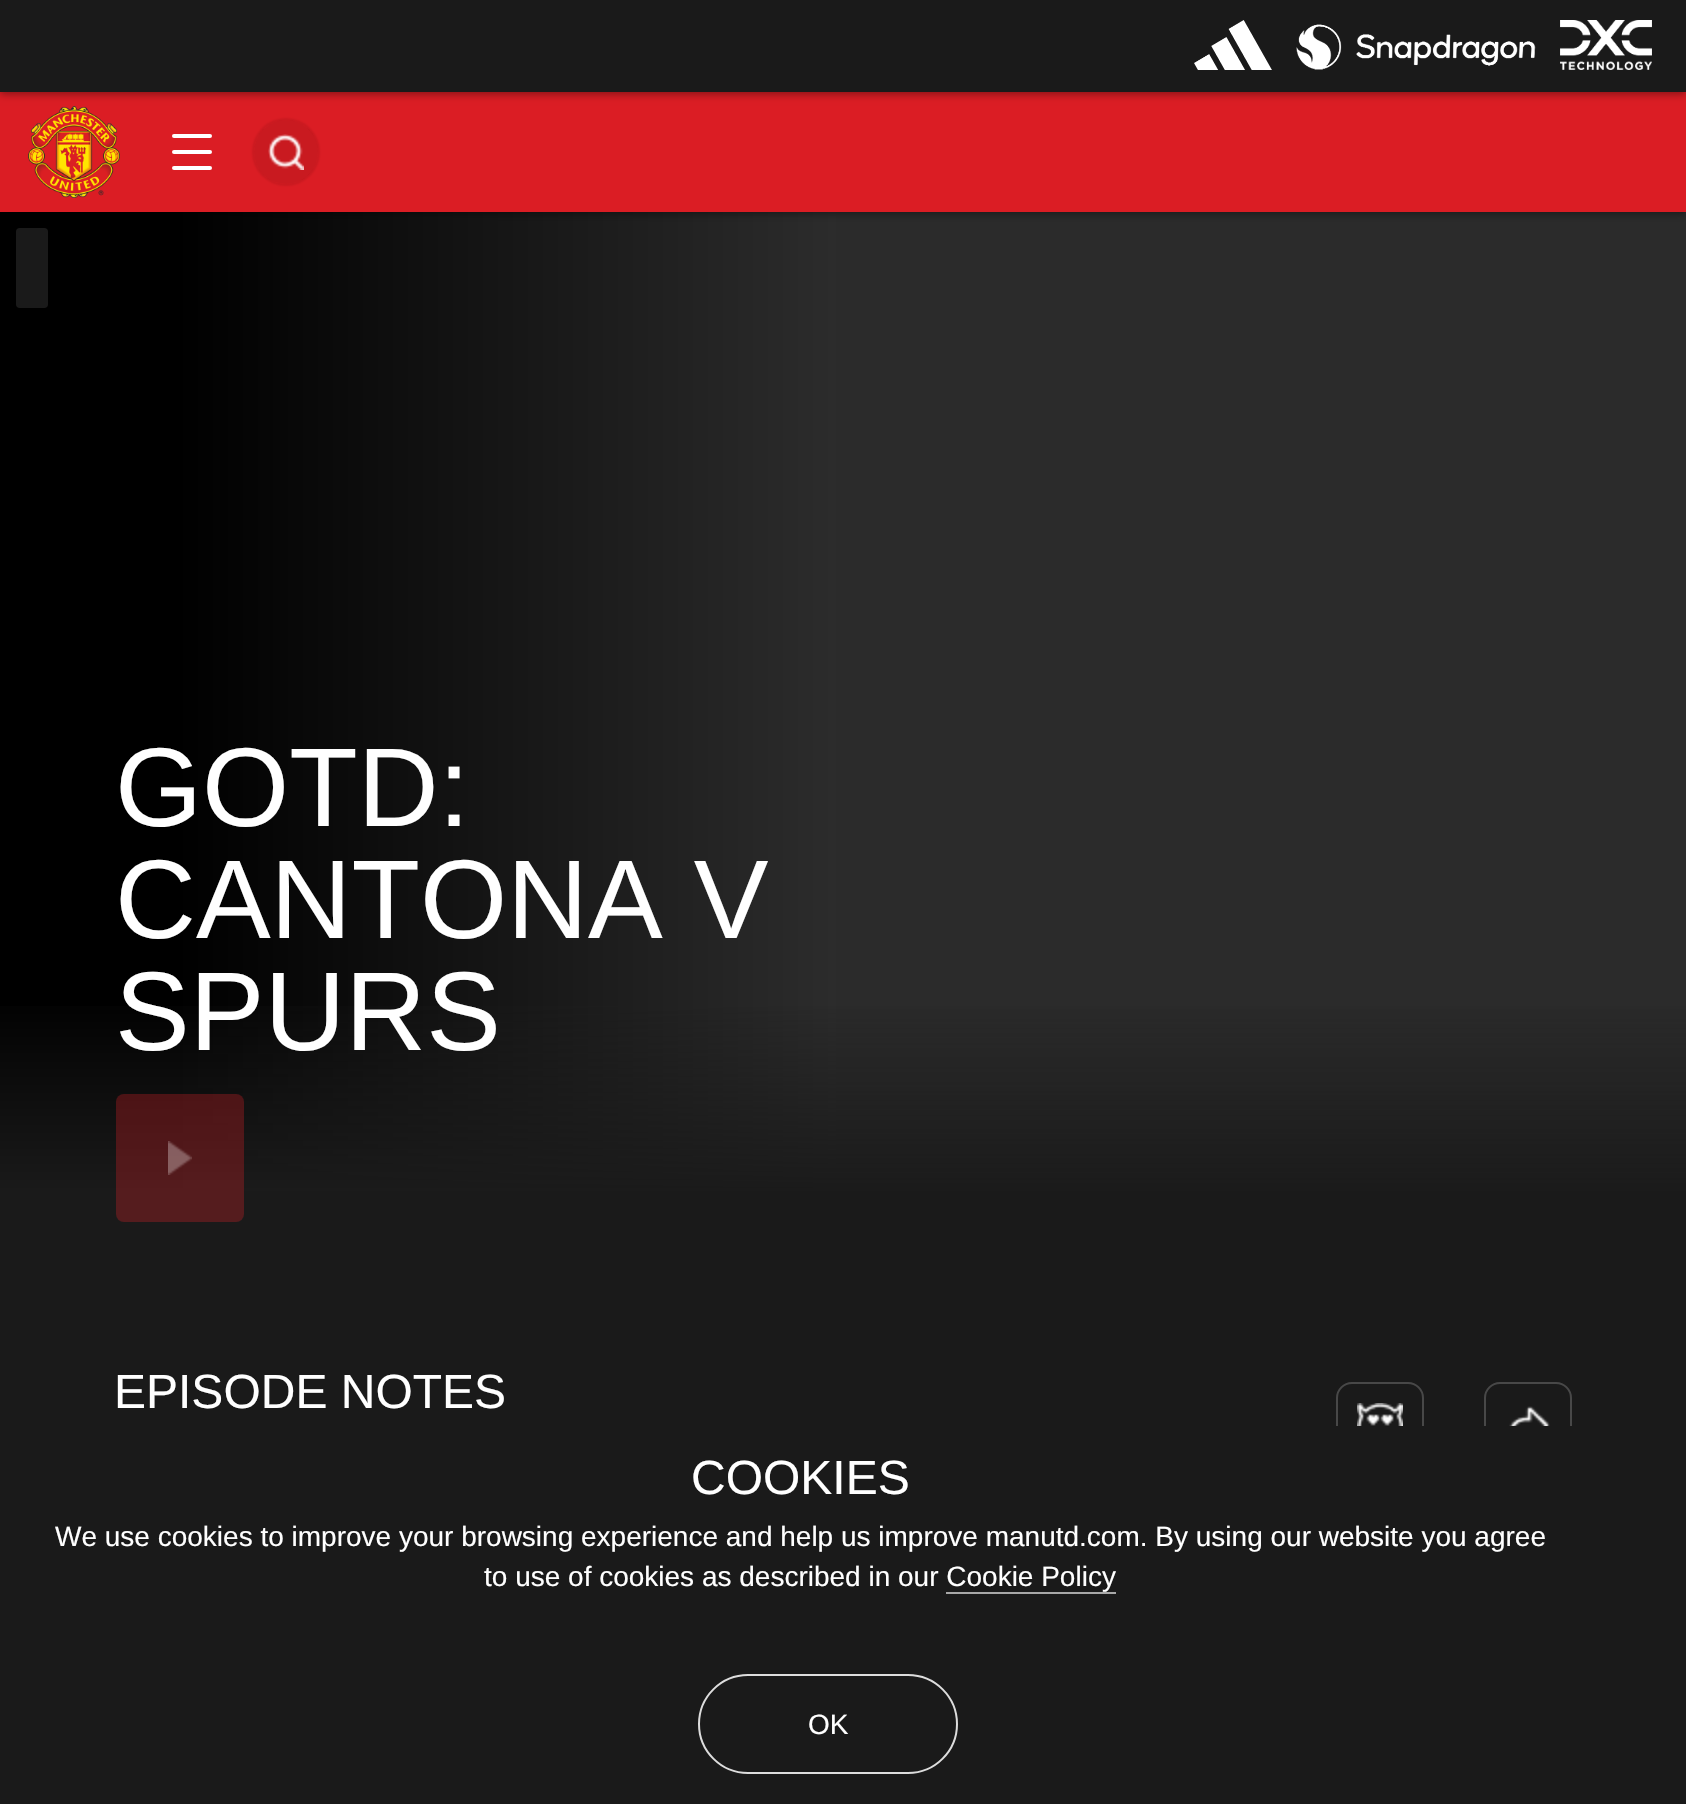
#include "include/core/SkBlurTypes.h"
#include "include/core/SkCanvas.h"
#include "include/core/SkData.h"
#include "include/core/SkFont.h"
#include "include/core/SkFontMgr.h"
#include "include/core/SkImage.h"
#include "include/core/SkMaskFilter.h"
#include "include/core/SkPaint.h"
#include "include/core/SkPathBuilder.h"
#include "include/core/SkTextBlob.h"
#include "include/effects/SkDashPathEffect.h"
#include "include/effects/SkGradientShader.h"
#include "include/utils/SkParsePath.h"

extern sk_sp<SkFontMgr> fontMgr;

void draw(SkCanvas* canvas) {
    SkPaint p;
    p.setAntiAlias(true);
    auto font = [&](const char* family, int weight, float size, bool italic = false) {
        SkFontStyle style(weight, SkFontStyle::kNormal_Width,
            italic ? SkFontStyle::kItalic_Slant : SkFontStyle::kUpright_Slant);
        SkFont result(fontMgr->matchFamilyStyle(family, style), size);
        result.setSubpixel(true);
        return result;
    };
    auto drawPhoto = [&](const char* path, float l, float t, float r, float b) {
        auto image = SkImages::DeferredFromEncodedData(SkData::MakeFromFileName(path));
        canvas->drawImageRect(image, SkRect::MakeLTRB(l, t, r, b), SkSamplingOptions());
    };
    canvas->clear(0xFF1A1A1A);
    p.setColor(0xFF2B2B2B);
    canvas->drawRect(SkRect::MakeLTRB(836, 212, 1686, 1191), p);
    {
        const SkColor colors[] = {0xFF2C2C2C, 0xFF000000};
        const float stops[] = {0, 0.79f};
        const SkPoint ends[] = {{836, 702}, {0, 702}};
        p.setShader(SkGradientShader::MakeLinear(ends, colors, stops, 2, SkTileMode::kClamp));
        p.setAlpha(255);
    }
    canvas->drawRect(SkRect::MakeLTRB(0, 212, 836, 1191), p);
    p.setShader(nullptr);
    p.setColor(0x66000000);
    p.setMaskFilter(SkMaskFilter::MakeBlur(kNormal_SkBlurStyle, 4));
    canvas->drawRect(SkRect::MakeLTRB(0, 94, 1686, 214), p);
    p.setMaskFilter(nullptr);
    p.setColor(0xFFDB1D24);
    canvas->drawRect(SkRect::MakeLTRB(0, 92, 1686, 212), p);
    drawPhoto("media/4.png", 28, 106, 120, 198);
    p.setColor(0x66000000);
    p.setMaskFilter(SkMaskFilter::MakeBlur(kNormal_SkBlurStyle, 4));
    canvas->drawRect(SkRect::MakeLTRB(0, 2, 1686, 94), p);
    p.setMaskFilter(nullptr);
    p.setColor(0xFF1A1A1A);
    canvas->drawRect(SkRect::MakeLTRB(0, 0, 1686, 92), p);
    drawPhoto("media/1.png", 1194, 20, 1272, 70);
    drawPhoto("media/2.png", 1296, 24, 1536, 70);
    drawPhoto("media/3.png", 1560, 20, 1652, 70);
    p.setColor(0xFFFFFFFF);
    canvas->drawRoundRect(SkRect::MakeLTRB(172, 134, 212, 138), 2, 2, p);
    canvas->drawRoundRect(SkRect::MakeLTRB(172, 150, 212, 154), 2, 2, p);
    canvas->drawRoundRect(SkRect::MakeLTRB(172, 166, 212, 170), 2, 2, p);
    canvas->save();
    canvas->clipPath(SkPathBuilder(SkPathFillType::kEvenOdd).moveTo(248, 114).lineTo(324, 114).lineTo(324, 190).lineTo(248, 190).close().moveTo(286, 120).cubicTo(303.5f, 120, 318, 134.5f, 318, 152).cubicTo(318, 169.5f, 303.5f, 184, 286, 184).cubicTo(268.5f, 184, 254, 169.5f, 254, 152).cubicTo(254, 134.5f, 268.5f, 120, 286, 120).close().detach(), true);
    p.setColor(0x1F4E0303);
    p.setMaskFilter(SkMaskFilter::MakeBlur(kNormal_SkBlurStyle, 1));
    canvas->drawRoundRect(SkRect::MakeLTRB(252, 118, 320, 186), 34, 34, p);
    p.setMaskFilter(nullptr);
    canvas->restore();
    canvas->drawCircle(286, 152, 32, p);
    drawPhoto("media/5.png", 268, 134, 304, 170);
    {
        const SkColor colors[] = {0xFF1A1A1A, 0x001A1A1A};
        const float stops[] = {0, 1};
        const SkPoint ends[] = {{843, 1192}, {843, 986}};
        p.setShader(SkGradientShader::MakeLinear(ends, colors, stops, 2, SkTileMode::kClamp));
        p.setAlpha(255);
    }
    canvas->drawRect(SkRect::MakeLTRB(0, 1006, 1686, 1191), p);
    p.setShader(nullptr);
    p.setColor(0xFF1A1A1A);
    canvas->drawRoundRect(SkRect::MakeLTRB(16, 228, 48, 308), 4, 4, p);
    auto font1 = font("Liberation Sans", 400, 112);
    p.setColor(0xFFFFFFFF);
    {
        const struct { const char* s; float x, y; } items[] = {
            {"GOTD:", 115, 826},
            {"CANTONA V", 115, 938},
            {"SPURS", 115, 1050},
        };
        for (auto [s, x, y] : items) {
            canvas->drawString(s, x, y, font1, p);
        }
    }
    p.setColor(0x4DDB1D24);
    canvas->drawRoundRect(SkRect::MakeLTRB(116, 1094, 244, 1222), 8, 8, p);
    drawPhoto("media/6.png", 168, 1141, 192, 1175);
    auto font2 = font("Liberation Sans", 400, 48);
    p.setColor(0xFFFFFFFF);
    canvas->drawString("EPISODE NOTES", 114, 1408, font2, p);
    p.setStyle(SkPaint::kStroke_Style);
    p.setStrokeWidth(2);
    p.setColor(0xFF484848);
    canvas->drawRoundRect(SkRect::MakeLTRB(1337, 1383, 1423, 1469), 15, 15, p);
    drawPhoto("media/7.png", 1357, 1403, 1403, 1426);
    canvas->drawRoundRect(SkRect::MakeLTRB(1485, 1383, 1571, 1469), 15, 15, p);
    drawPhoto("media/8.png", 1509, 1406, 1550, 1426);
    p.setStyle(SkPaint::kFill_Style);
    p.setColor(0xFF1A1A1A);
    canvas->drawPath(SkPathBuilder().moveTo(32, 1426).lineTo(1654, 1426).cubicTo(1671.5f, 1426, 1686, 1440.5f, 1686, 1458).lineTo(1686, 1804).lineTo(0, 1804).lineTo(0, 1458).cubicTo(0, 1440.5f, 14.5f, 1426, 32, 1426).close().detach(), p);
    p.setColor(0xFFFFFFFF);
    canvas->drawString("COOKIES", 691, 1494, font2, p);
    auto font3 = font("Liberation Sans", 400, 28);
    canvas->drawString("We use cookies to improve your browsing experience and help us improve manutd.com. By using our website you agree", 55, 1546, font3, p);
    canvas->drawString("to use of cookies as described in our Cookie Policy", 484, 1586, font3, p);
    p.setColor(0xFFA8A8A8);
    canvas->drawRect(SkRect::MakeLTRB(946, 1592, 1116, 1594), p);
    p.setStyle(SkPaint::kStroke_Style);
    p.setColor(0xFFDDDDDD);
    canvas->drawRoundRect(SkRect::MakeLTRB(699, 1675, 957, 1773), 49, 49, p);
    p.setStyle(SkPaint::kFill_Style);
    p.setColor(0xFFFFFFFF);
    canvas->drawString("OK", 808, 1734, font3, p);
}
